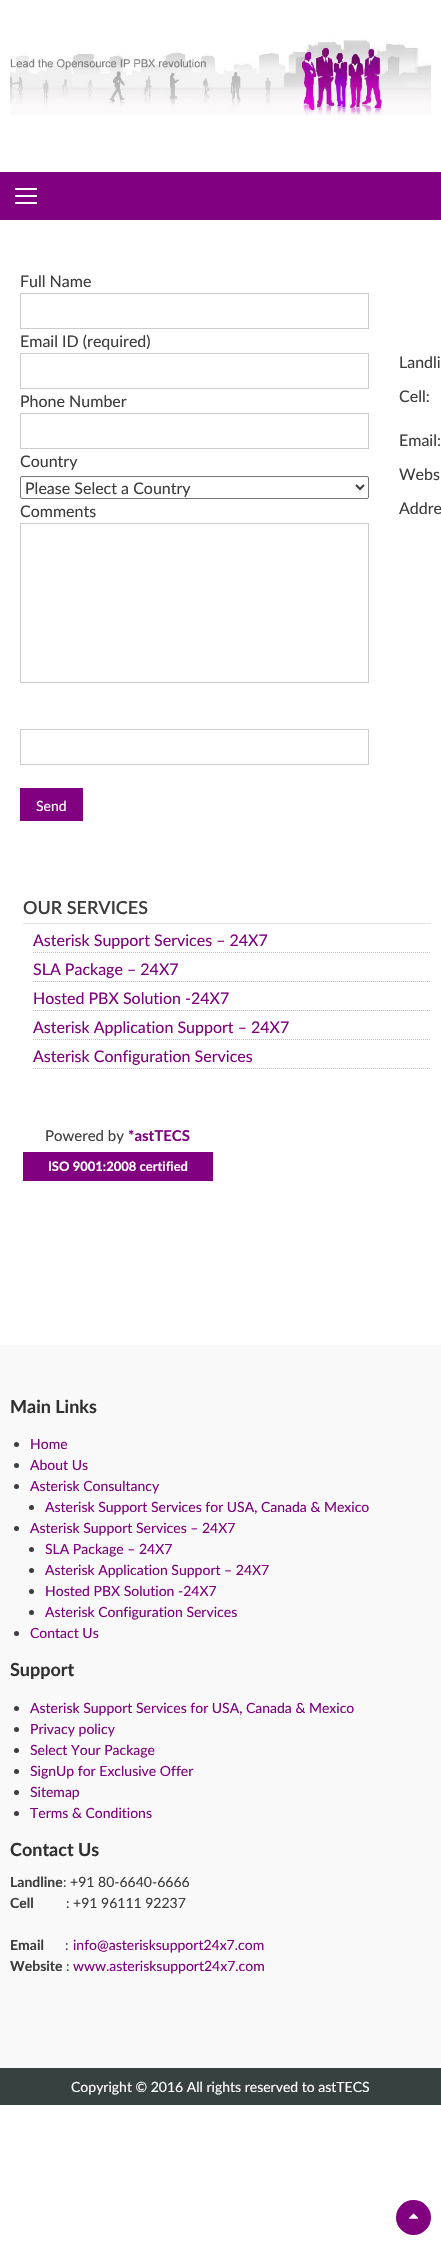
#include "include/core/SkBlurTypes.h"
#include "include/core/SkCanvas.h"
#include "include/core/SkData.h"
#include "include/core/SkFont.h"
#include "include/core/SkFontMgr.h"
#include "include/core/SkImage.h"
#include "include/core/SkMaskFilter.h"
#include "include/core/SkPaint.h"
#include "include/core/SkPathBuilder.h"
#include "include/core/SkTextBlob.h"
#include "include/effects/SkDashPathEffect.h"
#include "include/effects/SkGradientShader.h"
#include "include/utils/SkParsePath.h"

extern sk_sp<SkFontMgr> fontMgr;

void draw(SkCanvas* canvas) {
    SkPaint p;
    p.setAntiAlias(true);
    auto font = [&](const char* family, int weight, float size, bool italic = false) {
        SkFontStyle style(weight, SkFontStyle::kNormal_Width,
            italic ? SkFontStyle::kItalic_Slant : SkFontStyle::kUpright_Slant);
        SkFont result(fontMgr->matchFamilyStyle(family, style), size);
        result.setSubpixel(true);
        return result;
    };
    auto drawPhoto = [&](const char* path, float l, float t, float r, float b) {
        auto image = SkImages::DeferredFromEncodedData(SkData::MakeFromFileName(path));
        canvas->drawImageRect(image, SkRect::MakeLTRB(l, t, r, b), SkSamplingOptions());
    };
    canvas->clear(0xFFFFFFFF);
    drawPhoto("media/1.png", 10, 38, 431, 116);
    {
        const struct { float l, t, r, b; SkColor color; } items[] = {
            {0, 172, 441, 220, 0xFF800080},
            {15, 188, 37, 190, 0xFFFFFFFF},
            {15, 195, 37, 197, 0xFFFFFFFF},
            {15, 202, 37, 204, 0xFFFFFFFF},
        };
        for (auto [l, t, r, b, color] : items) {
            p.setColor(color);
            canvas->drawRect(SkRect::MakeLTRB(l, t, r, b), p);
        }
    }
    auto font1 = font("Lato", 400, 16);
    p.setColor(0xFF3D3D3D);
    canvas->drawString("Full Name", 20, 287, font1, p);
    p.setStyle(SkPaint::kStroke_Style);
    p.setStrokeWidth(1);
    p.setColor(0xFFCCCCCC);
    canvas->drawRect(SkRect::MakeLTRB(20.5f, 293.5f, 368.5f, 328.5f), p);
    p.setStyle(SkPaint::kFill_Style);
    p.setColor(0xFF3D3D3D);
    canvas->drawString("Email ID (required)", 20, 347, font1, p);
    p.setStyle(SkPaint::kStroke_Style);
    p.setColor(0xFFCCCCCC);
    canvas->drawRect(SkRect::MakeLTRB(20.5f, 353.5f, 368.5f, 388.5f), p);
    p.setStyle(SkPaint::kFill_Style);
    p.setColor(0xFF3D3D3D);
    canvas->drawString("Phone Number", 20, 407, font1, p);
    p.setStyle(SkPaint::kStroke_Style);
    p.setColor(0xFFCCCCCC);
    canvas->drawRect(SkRect::MakeLTRB(20.5f, 413.5f, 368.5f, 448.5f), p);
    p.setStyle(SkPaint::kFill_Style);
    p.setColor(0xFF3D3D3D);
    canvas->drawString("Country", 20, 467, font1, p);
    p.setStyle(SkPaint::kStroke_Style);
    p.setColor(0xFF767676);
    canvas->drawRoundRect(SkRect::MakeLTRB(20.5f, 476.5f, 368.5f, 498.5f), 1.5f, 1.5f, p);
    p.setStrokeWidth(2);
    p.setColor(0xFF3D3D3D);
    canvas->drawPath(SkPathBuilder().moveTo(356, 485).lineTo(360, 489).lineTo(364, 485).detach(), p);
    p.setStyle(SkPaint::kFill_Style);
    canvas->drawString("Please Select a Country", 25, 494, font1, p);
    canvas->drawString("Comments", 20, 517, font1, p);
    p.setStyle(SkPaint::kStroke_Style);
    p.setStrokeWidth(1);
    p.setColor(0xFFCCCCCC);
    canvas->drawRect(SkRect::MakeLTRB(20.5f, 523.5f, 368.5f, 682.5f), p);
    canvas->drawRect(SkRect::MakeLTRB(20.5f, 729.5f, 368.5f, 764.5f), p);
    p.setStyle(SkPaint::kFill_Style);
    p.setColor(0xFF800080);
    canvas->drawRect(SkRect::MakeLTRB(20, 788, 83, 821), p);
    auto font2 = font("Lato", 400, 14);
    p.setColor(0xFFFFFFFF);
    canvas->drawString("Send", 36, 811, font2, p);
    p.setColor(0xFF3D3D3D);
    {
        const struct { const char* s; float x, y; } items[] = {
            {"Landli", 399, 368},
            {"Cell:", 399, 402},
            {"Email:", 399, 446},
            {"Webs", 399, 480},
            {"Addre", 399, 514},
        };
        for (auto [s, x, y] : items) {
            canvas->drawString(s, x, y, font1, p);
        }
    }
    p.setColor(0xFFE2E2E2);
    canvas->drawRect(SkRect::MakeLTRB(23, 923, 431, 924), p);
    auto font3 = font("Lato", 600, 18);
    p.setColor(0xFF3D3D3D);
    canvas->drawString("OUR SERVICES", 23, 914, font3, p);
    p.setStyle(SkPaint::kStroke_Style);
    p.setColor(0xFFF99BFC);
    p.setPathEffect(SkDashPathEffect::Make({{1, 1}}, 0));
    canvas->drawPath(SkPathBuilder().moveTo(33, 952.5f).lineTo(431, 952.5f).detach(), p);
    p.setPathEffect(nullptr);
    p.setStyle(SkPaint::kFill_Style);
    p.setColor(0xFF800080);
    canvas->drawString("Asterisk Support Services – 24X7", 33, 946, font1, p);
    p.setStyle(SkPaint::kStroke_Style);
    p.setColor(0xFFF99BFC);
    p.setPathEffect(SkDashPathEffect::Make({{1, 1}}, 0));
    canvas->drawPath(SkPathBuilder().moveTo(33, 981.5f).lineTo(431, 981.5f).detach(), p);
    p.setPathEffect(nullptr);
    p.setStyle(SkPaint::kFill_Style);
    p.setColor(0xFF800080);
    canvas->drawString("SLA Package – 24X7", 33, 975, font1, p);
    p.setStyle(SkPaint::kStroke_Style);
    p.setColor(0xFFF99BFC);
    p.setPathEffect(SkDashPathEffect::Make({{1, 1}}, 0));
    canvas->drawPath(SkPathBuilder().moveTo(33, 1010.5f).lineTo(431, 1010.5f).detach(), p);
    p.setPathEffect(nullptr);
    p.setStyle(SkPaint::kFill_Style);
    p.setColor(0xFF800080);
    canvas->drawString("Hosted PBX Solution -24X7", 33, 1004, font1, p);
    p.setStyle(SkPaint::kStroke_Style);
    p.setColor(0xFFF99BFC);
    p.setPathEffect(SkDashPathEffect::Make({{1, 1}}, 0));
    canvas->drawPath(SkPathBuilder().moveTo(33, 1039.5f).lineTo(431, 1039.5f).detach(), p);
    p.setPathEffect(nullptr);
    p.setStyle(SkPaint::kFill_Style);
    p.setColor(0xFF800080);
    canvas->drawString("Asterisk Application Support – 24X7", 33, 1033, font1, p);
    p.setStyle(SkPaint::kStroke_Style);
    p.setColor(0xFFF99BFC);
    p.setPathEffect(SkDashPathEffect::Make({{1, 1}}, 0));
    canvas->drawPath(SkPathBuilder().moveTo(33, 1068.5f).lineTo(431, 1068.5f).detach(), p);
    p.setPathEffect(nullptr);
    p.setStyle(SkPaint::kFill_Style);
    p.setColor(0xFF800080);
    canvas->drawString("Asterisk Configuration Services", 33, 1062, font1, p);
    auto font4 = font("Lato", 400, 15);
    p.setColor(0xFF3D3D3D);
    canvas->drawString("Powered by", 45, 1141, font4, p);
    auto font5 = font("Lato", 700, 15);
    p.setColor(0xFF800080);
    canvas->drawString("*astTECS", 128, 1141, font5, p);
    canvas->drawRect(SkRect::MakeLTRB(23, 1152, 213, 1181), p);
    auto font6 = font("Lato", 700, 13);
    p.setColor(0xFFFFFFFF);
    canvas->drawString("ISO 9001:2008 certified", 48, 1171, font6, p);
    p.setColor(0xFFF9F9F9);
    canvas->drawRect(SkRect::MakeLTRB(0, 1345, 441, 2068), p);
    auto font7 = font("Lato", 700, 18);
    p.setColor(0xFF303030);
    canvas->drawString("Main Links", 10, 1413, font7, p);
    p.setColor(0xFF3D3D3D);
    canvas->drawCircle(16.5f, 1444.5f, 2.5f, p);
    p.setColor(0xFF800080);
    canvas->drawString("Home", 30, 1449, font2, p);
    p.setColor(0xFF3D3D3D);
    canvas->drawCircle(16.5f, 1465.5f, 2.5f, p);
    p.setColor(0xFF800080);
    canvas->drawString("About Us", 30, 1470, font2, p);
    p.setColor(0xFF3D3D3D);
    canvas->drawCircle(16.5f, 1486.5f, 2.5f, p);
    p.setColor(0xFF800080);
    canvas->drawString("Asterisk Consultancy", 30, 1491, font2, p);
    p.setColor(0xFF3D3D3D);
    canvas->drawCircle(31.5f, 1507.5f, 2.5f, p);
    p.setColor(0xFF800080);
    canvas->drawString("Asterisk Support Services for USA, Canada & Mexico", 45, 1512, font2, p);
    p.setColor(0xFF3D3D3D);
    canvas->drawCircle(16.5f, 1528.5f, 2.5f, p);
    p.setColor(0xFF800080);
    canvas->drawString("Asterisk Support Services – 24X7", 30, 1533, font2, p);
    p.setColor(0xFF3D3D3D);
    canvas->drawCircle(31.5f, 1549.5f, 2.5f, p);
    p.setColor(0xFF800080);
    canvas->drawString("SLA Package – 24X7", 45, 1554, font2, p);
    p.setColor(0xFF3D3D3D);
    canvas->drawCircle(31.5f, 1570.5f, 2.5f, p);
    p.setColor(0xFF800080);
    canvas->drawString("Asterisk Application Support – 24X7", 45, 1575, font2, p);
    p.setColor(0xFF3D3D3D);
    canvas->drawCircle(31.5f, 1591.5f, 2.5f, p);
    p.setColor(0xFF800080);
    canvas->drawString("Hosted PBX Solution -24X7", 45, 1596, font2, p);
    p.setColor(0xFF3D3D3D);
    canvas->drawCircle(31.5f, 1612.5f, 2.5f, p);
    p.setColor(0xFF800080);
    canvas->drawString("Asterisk Configuration Services", 45, 1617, font2, p);
    p.setColor(0xFF3D3D3D);
    canvas->drawCircle(16.5f, 1633.5f, 2.5f, p);
    p.setColor(0xFF800080);
    canvas->drawString("Contact Us", 30, 1638, font2, p);
    p.setColor(0xFF303030);
    canvas->drawString("Support", 10, 1676, font7, p);
    p.setColor(0xFF3D3D3D);
    canvas->drawCircle(16.5f, 1708.5f, 2.5f, p);
    p.setColor(0xFF800080);
    canvas->drawString("Asterisk Support Services for USA, Canada & Mexico", 30, 1713, font2, p);
    p.setColor(0xFF3D3D3D);
    canvas->drawCircle(16.5f, 1729.5f, 2.5f, p);
    p.setColor(0xFF800080);
    canvas->drawString("Privacy policy", 30, 1734, font2, p);
    p.setColor(0xFF3D3D3D);
    canvas->drawCircle(16.5f, 1750.5f, 2.5f, p);
    p.setColor(0xFF800080);
    canvas->drawString("Select Your Package", 30, 1755, font2, p);
    p.setColor(0xFF3D3D3D);
    canvas->drawCircle(16.5f, 1771.5f, 2.5f, p);
    p.setColor(0xFF800080);
    canvas->drawString("SignUp for Exclusive Offer", 30, 1776, font2, p);
    p.setColor(0xFF3D3D3D);
    canvas->drawCircle(16.5f, 1792.5f, 2.5f, p);
    p.setColor(0xFF800080);
    canvas->drawString("Sitemap", 30, 1797, font2, p);
    p.setColor(0xFF3D3D3D);
    canvas->drawCircle(16.5f, 1813.5f, 2.5f, p);
    p.setColor(0xFF800080);
    canvas->drawString("Terms & Conditions", 30, 1818, font2, p);
    p.setColor(0xFF303030);
    canvas->drawString("Contact Us", 10, 1856, font7, p);
    auto font8 = font("Lato", 700, 14);
    p.setColor(0xFF3D3D3D);
    canvas->drawString("Landline", 10, 1887, font8, p);
    canvas->drawString(": +91 80-6640-6666", 63, 1887, font2, p);
    canvas->drawString("Cell", 10, 1908, font8, p);
    canvas->drawString(": +91 96111 92237", 66, 1908, font2, p);
    canvas->drawString("Email", 10, 1950, font8, p);
    canvas->drawString(":", 65, 1950, font2, p);
    p.setColor(0xFF800080);
    canvas->drawString("info@asterisksupport24x7.com", 73, 1950, font2, p);
    p.setColor(0xFF3D3D3D);
    canvas->drawString("Website", 10, 1971, font8, p);
    canvas->drawString(":", 66, 1971, font2, p);
    p.setColor(0xFF800080);
    canvas->drawString("www.asterisksupport24x7.com", 73, 1971, font2, p);
    p.setColor(0xFF374140);
    canvas->drawRect(SkRect::MakeLTRB(0, 2068, 441, 2105), p);
    p.setColor(0xFFFFFFFF);
    canvas->drawString("Copyright © 2016 All rights reserved to astTECS", 71, 2092, font2, p);
    p.setColor(0xFF800080);
    canvas->drawCircle(413.5f, 2217.5f, 17.5f, p);
    drawPhoto("media/2.png", 409, 2213, 419, 2219);
}
